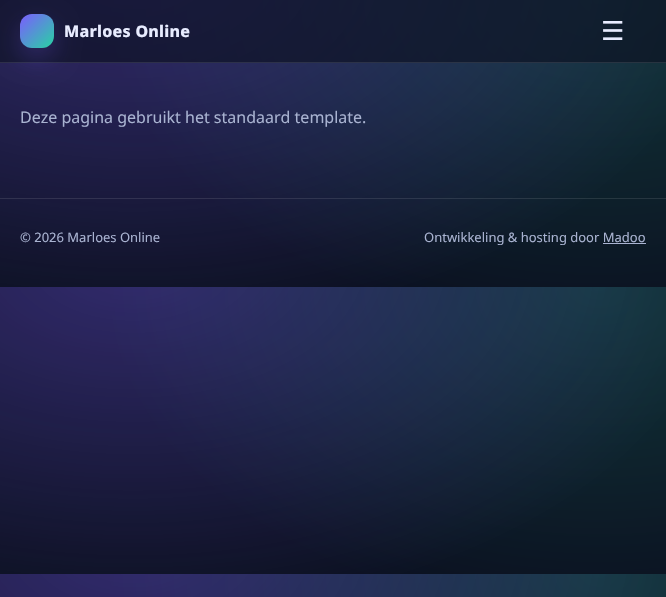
#include "include/core/SkBlurTypes.h"
#include "include/core/SkCanvas.h"
#include "include/core/SkData.h"
#include "include/core/SkFont.h"
#include "include/core/SkFontMgr.h"
#include "include/core/SkImage.h"
#include "include/core/SkMaskFilter.h"
#include "include/core/SkPaint.h"
#include "include/core/SkPathBuilder.h"
#include "include/core/SkTextBlob.h"
#include "include/effects/SkDashPathEffect.h"
#include "include/effects/SkGradientShader.h"
#include "include/utils/SkParsePath.h"

extern sk_sp<SkFontMgr> fontMgr;

void draw(SkCanvas* canvas) {
    SkPaint p;
    p.setAntiAlias(true);
    auto font = [&](const char* family, int weight, float size, bool italic = false) {
        SkFontStyle style(weight, SkFontStyle::kNormal_Width,
            italic ? SkFontStyle::kItalic_Slant : SkFontStyle::kUpright_Slant);
        SkFont result(fontMgr->matchFamilyStyle(family, style), size);
        result.setSubpixel(true);
        return result;
    };
    auto drawTracked = [&](const char* s, float x, float y, const SkFont& font, const SkPaint& ink, float letter, float word) {
        std::vector<SkGlyphID> glyphs(font.countText(s, strlen(s), SkTextEncoding::kUTF8));
        std::vector<float> xs(glyphs.size());
        font.textToGlyphs(s, strlen(s), SkTextEncoding::kUTF8, glyphs);
        font.getXPos(glyphs, xs, x);
        float extra = 0;
        for (size_t i = 0; i < glyphs.size(); i++) {
            xs[i] += extra;
            extra += letter + word * (glyphs[i] == font.unicharToGlyph(' '));
        }
        canvas->drawTextBlob(SkTextBlob::MakeFromPosHGlyphs(glyphs, xs, y, font), 0, 0, ink);
    };
    canvas->clear(0xFFFFFFFF);
    {
        const SkColor colors[] = {0xFF11373A, 0xFF0B1020};
        const float stops[] = {0, 0.55f};
        SkMatrix m = SkMatrix::Translate(599, 0).preScale(900, 600);
        p.setShader(SkGradientShader::MakeRadial({0, 0}, 1, colors, stops, 2, SkTileMode::kClamp, 0, &m));
        p.setAlpha(255);
    }
    canvas->drawRect(SkRect::MakeLTRB(0, 0, 666, 287), p);
    {
        const SkColor colors[] = {0xFF11373A, 0xFF0B1020};
        const float stops[] = {0, 0.55f};
        SkMatrix m = SkMatrix::Translate(599, 287).preScale(900, 600);
        p.setShader(SkGradientShader::MakeRadial({0, 0}, 1, colors, stops, 2, SkTileMode::kClamp, 0, &m));
        p.setAlpha(255);
    }
    canvas->drawRect(SkRect::MakeLTRB(0, 287, 666, 574), p);
    {
        const SkColor colors[] = {0xFF11373A, 0xFF0B1020};
        const float stops[] = {0, 0.55f};
        SkMatrix m = SkMatrix::Translate(599, 574).preScale(900, 600);
        p.setShader(SkGradientShader::MakeRadial({0, 0}, 1, colors, stops, 2, SkTileMode::kClamp, 0, &m));
        p.setAlpha(255);
    }
    canvas->drawRect(SkRect::MakeLTRB(0, 574, 666, 597), p);
    {
        const SkColor colors[] = {0x597C5CFF, 0x007C5CFF};
        const float stops[] = {0, 0.6f};
        SkMatrix m = SkMatrix::Translate(133, -29).preScale(1000, 600);
        p.setShader(SkGradientShader::MakeRadial({0, 0}, 1, colors, stops, 2, SkTileMode::kClamp, 0, &m));
        p.setAlpha(255);
    }
    canvas->drawRect(SkRect::MakeLTRB(0, 0, 666, 287), p);
    {
        const SkColor colors[] = {0x597C5CFF, 0x007C5CFF};
        const float stops[] = {0, 0.6f};
        SkMatrix m = SkMatrix::Translate(133, 258).preScale(1000, 600);
        p.setShader(SkGradientShader::MakeRadial({0, 0}, 1, colors, stops, 2, SkTileMode::kClamp, 0, &m));
        p.setAlpha(255);
    }
    canvas->drawRect(SkRect::MakeLTRB(0, 287, 666, 574), p);
    {
        const SkColor colors[] = {0x597C5CFF, 0x007C5CFF};
        const float stops[] = {0, 0.6f};
        SkMatrix m = SkMatrix::Translate(133, 545).preScale(1000, 600);
        p.setShader(SkGradientShader::MakeRadial({0, 0}, 1, colors, stops, 2, SkTileMode::kClamp, 0, &m));
        p.setAlpha(255);
    }
    canvas->drawRect(SkRect::MakeLTRB(0, 574, 666, 597), p);
    p.setShader(nullptr);
    p.setColor(0xA60B1020);
    canvas->drawRect(SkRect::MakeLTRB(0, 0, 666, 63), p);
    p.setColor(0x1AFFFFFF);
    canvas->drawRect(SkRect::MakeLTRB(0, 62, 666, 63), p);
    p.setColor(0x407C5CFF);
    p.setMaskFilter(SkMaskFilter::MakeBlur(kNormal_SkBlurStyle, 12.5f));
    canvas->drawRoundRect(SkRect::MakeLTRB(20, 24, 54, 58), 12, 12, p);
    p.setMaskFilter(nullptr);
    {
        const SkColor colors[] = {0xFF7C5CFF, 0xFF27D3A2};
        const float stops[] = {0, 1};
        const SkPoint ends[] = {{20, 14}, {54, 48}};
        p.setShader(SkGradientShader::MakeLinear(ends, colors, stops, 2, SkTileMode::kClamp));
        p.setAlpha(255);
    }
    canvas->drawRoundRect(SkRect::MakeLTRB(20, 14, 54, 48), 12, 12, p);
    auto font1 = font("Noto Sans", 800, 16);
    p.setShader(nullptr);
    p.setColor(0xFFE8ECFF);
    drawTracked("Marloes Online", 64, 37, font1, p, 0.25f, 0);
    auto font2 = font("DejaVu Sans", 400, 26);
    canvas->drawString("☰", 601, 40, font2, p);
    auto font3 = font("Noto Sans", 400, 16);
    p.setColor(0xFFA9B3D1);
    canvas->drawString("Deze pagina gebruikt het standaard template.", 20, 123, font3, p);
    p.setColor(0x1AFFFFFF);
    canvas->drawRect(SkRect::MakeLTRB(0, 198, 666, 199), p);
    auto font4 = font("Noto Sans", 400, 13);
    p.setColor(0xFFA9B3D1);
    canvas->drawString("© 2026 Marloes Online", 20, 242, font4, p);
    canvas->drawString("Ontwikkeling & hosting door Madoo", 424, 242, font4, p);
    canvas->drawRect(SkRect::MakeLTRB(603, 243, 646, 244), p);
}
